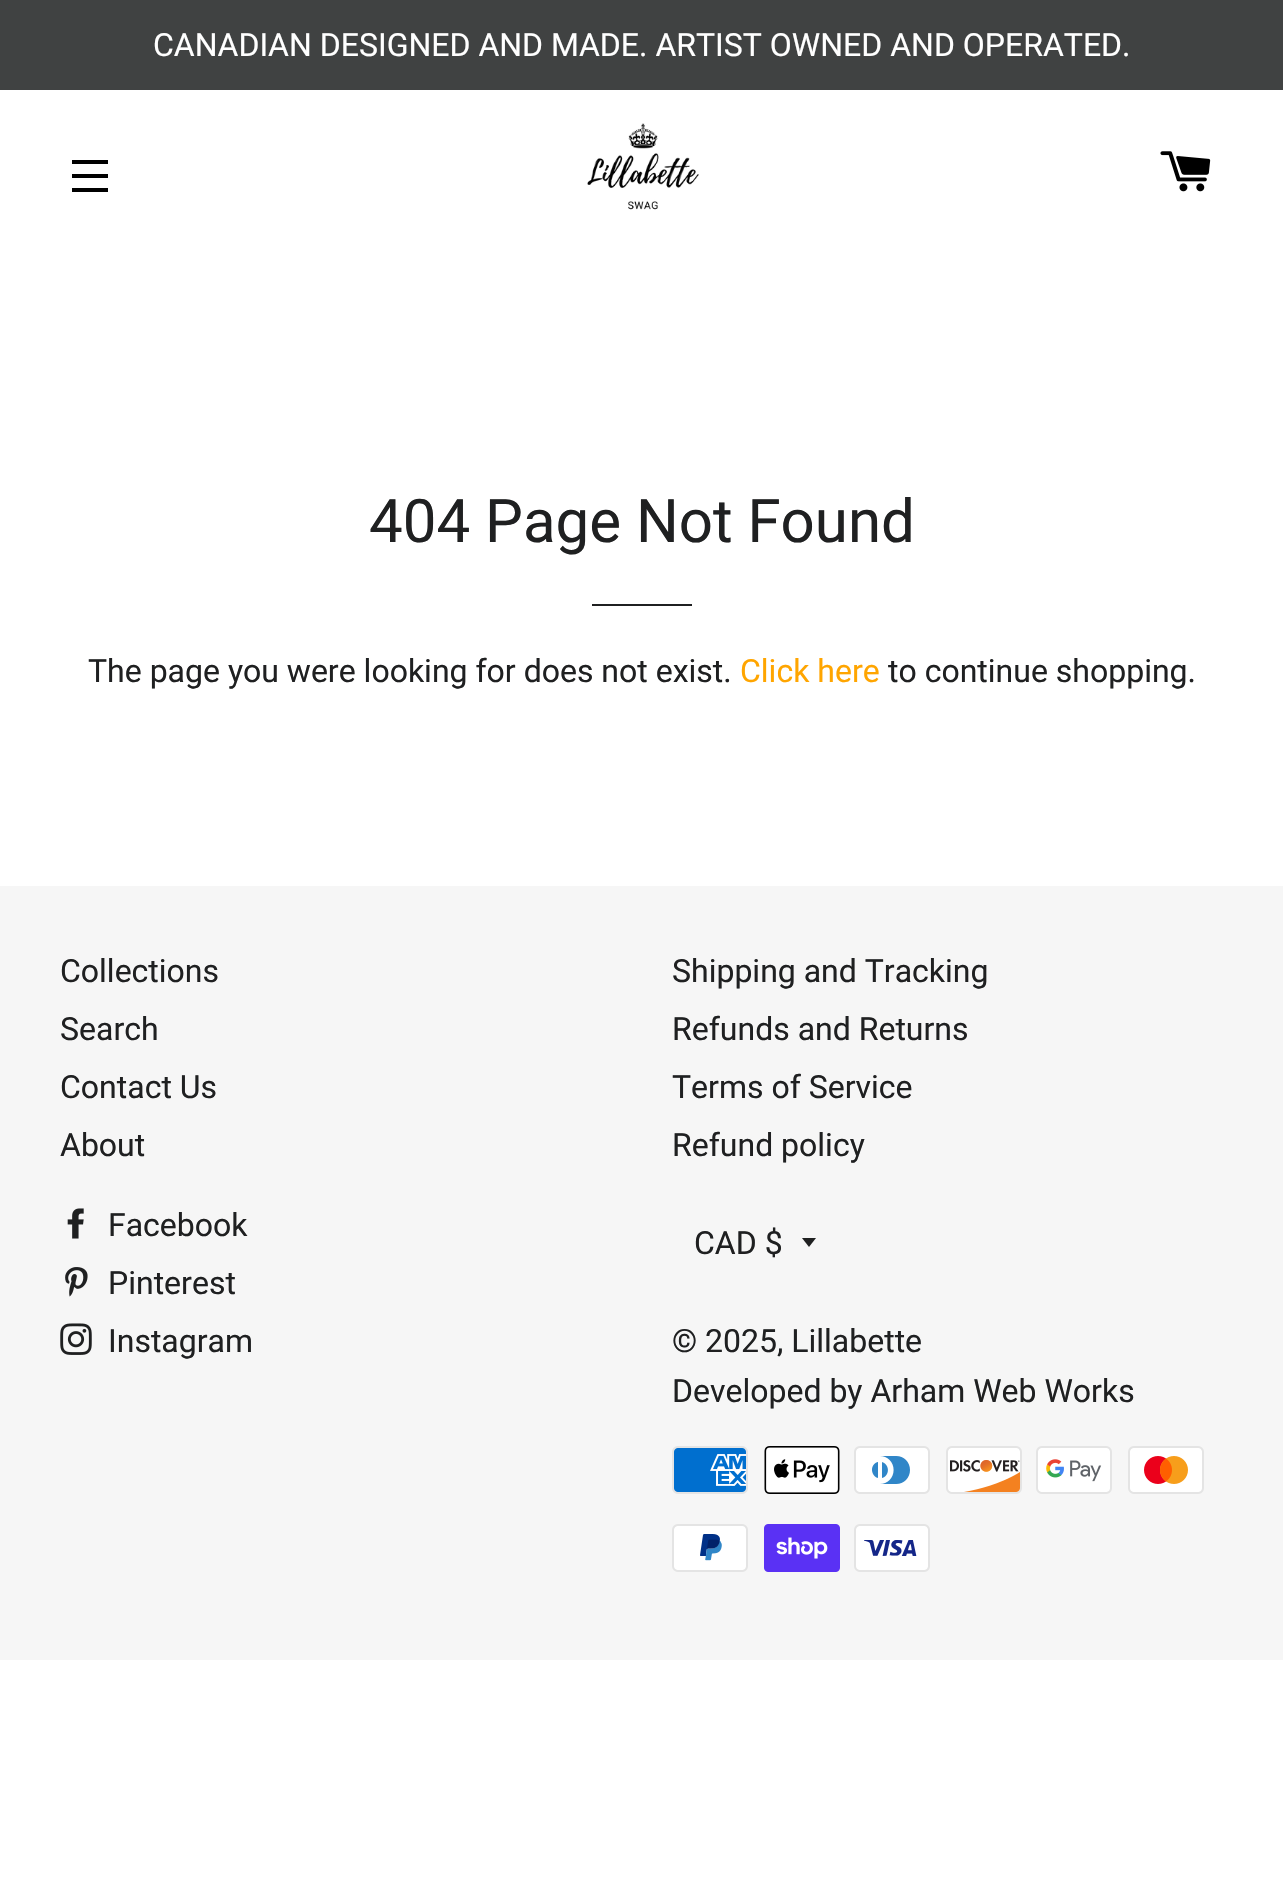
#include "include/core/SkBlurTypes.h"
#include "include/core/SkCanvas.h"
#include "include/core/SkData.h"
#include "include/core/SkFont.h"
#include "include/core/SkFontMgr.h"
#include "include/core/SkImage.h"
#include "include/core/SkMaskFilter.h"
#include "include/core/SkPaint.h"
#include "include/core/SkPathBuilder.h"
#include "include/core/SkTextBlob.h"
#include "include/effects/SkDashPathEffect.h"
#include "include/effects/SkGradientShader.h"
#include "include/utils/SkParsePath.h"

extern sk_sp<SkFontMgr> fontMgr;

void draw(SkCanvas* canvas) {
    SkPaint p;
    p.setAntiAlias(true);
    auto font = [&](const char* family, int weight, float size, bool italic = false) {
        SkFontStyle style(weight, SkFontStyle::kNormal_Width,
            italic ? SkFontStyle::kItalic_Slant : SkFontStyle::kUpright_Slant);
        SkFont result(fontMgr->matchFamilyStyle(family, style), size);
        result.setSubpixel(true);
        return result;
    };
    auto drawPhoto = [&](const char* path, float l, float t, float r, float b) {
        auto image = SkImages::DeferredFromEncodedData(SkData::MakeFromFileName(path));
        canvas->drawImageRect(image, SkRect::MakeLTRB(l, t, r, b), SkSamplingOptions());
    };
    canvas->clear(0xFFFFFFFF);
    p.setColor(0xFF404242);
    canvas->drawRect(SkRect::MakeLTRB(0, 0, 1283, 90), p);
    auto font1 = font("Roboto", 400, 32);
    p.setColor(0xFFFFFFFF);
    canvas->drawString("CANADIAN DESIGNED AND MADE. ARTIST OWNED AND OPERATED.", 153, 56, font1, p);
    {
        const struct { float l, t, r, b; SkColor color; } items[] = {
            {72, 160, 108, 164, 0xFF000000},
            {72, 174, 108, 178, 0xFF000000},
            {72, 188, 108, 192, 0xFF000000},
        };
        for (auto [l, t, r, b, color] : items) {
            p.setColor(color);
            canvas->drawRect(SkRect::MakeLTRB(l, t, r, b), p);
        }
    }
    drawPhoto("media/1.png", 587, 123, 699, 210);
    drawPhoto("media/2.png", 1160, 151, 1211, 192);
    auto font2 = font("Roboto", 400, 60);
    p.setColor(0xFF1F2021);
    canvas->drawString("404 Page Not Found", 369, 542, font2, p);
    canvas->drawRect(SkRect::MakeLTRB(592, 604, 692, 606), p);
    canvas->drawString("The page you were looking for does not exist.", 88, 682, font1, p);
    p.setColor(0xFFFFA500);
    canvas->drawString("Click here", 740, 682, font1, p);
    p.setColor(0xFF1F2021);
    canvas->drawString("to continue shopping.", 888, 682, font1, p);
    p.setColor(0xFFF6F6F6);
    canvas->drawRect(SkRect::MakeLTRB(0, 886, 1283, 1660), p);
    p.setColor(0xFF1F2021);
    {
        const struct { const char* s; float x, y; } items[] = {
            {"Collections", 60, 982},
            {"Search", 60, 1040},
            {"Contact Us", 60, 1098},
            {"About", 60, 1156},
            {"Shipping and Tracking", 672, 982},
            {"Refunds and Returns", 672, 1040},
            {"Terms of Service", 672, 1098},
            {"Refund policy", 672, 1156},
        };
        for (auto [s, x, y] : items) {
            canvas->drawString(s, x, y, font1, p);
        }
    }
    drawPhoto("media/3.png", 67, 1208, 84, 1239);
    canvas->drawString("Facebook", 108, 1236, font1, p);
    drawPhoto("media/4.png", 65, 1267, 88, 1297);
    canvas->drawString("Pinterest", 108, 1294, font1, p);
    drawPhoto("media/5.png", 60, 1323, 92, 1355);
    canvas->drawString("Instagram", 108, 1352, font1, p);
    canvas->drawPath(SkPathBuilder().moveTo(802, 1238).lineTo(809, 1247).lineTo(816, 1238).close().detach(), p);
    {
        const struct { const char* s; float x, y; } items[] = {
            {"CAD $", 694, 1254},
            {"© 2025, Lillabette", 672, 1352},
            {"Developed by Arham Web Works", 672, 1402},
        };
        for (auto [s, x, y] : items) {
            canvas->drawString(s, x, y, font1, p);
        }
    }
    drawPhoto("media/6.png", 672, 1446, 748, 1494);
    drawPhoto("media/7.png", 764, 1446, 840, 1494);
    drawPhoto("media/8.png", 854, 1446, 930, 1494);
    drawPhoto("media/9.png", 946, 1446, 1022, 1494);
    drawPhoto("media/10.png", 1036, 1446, 1112, 1494);
    drawPhoto("media/11.png", 1128, 1446, 1204, 1494);
    drawPhoto("media/12.png", 672, 1524, 748, 1572);
    drawPhoto("media/13.png", 764, 1524, 840, 1572);
    drawPhoto("media/14.png", 854, 1524, 930, 1572);
}
